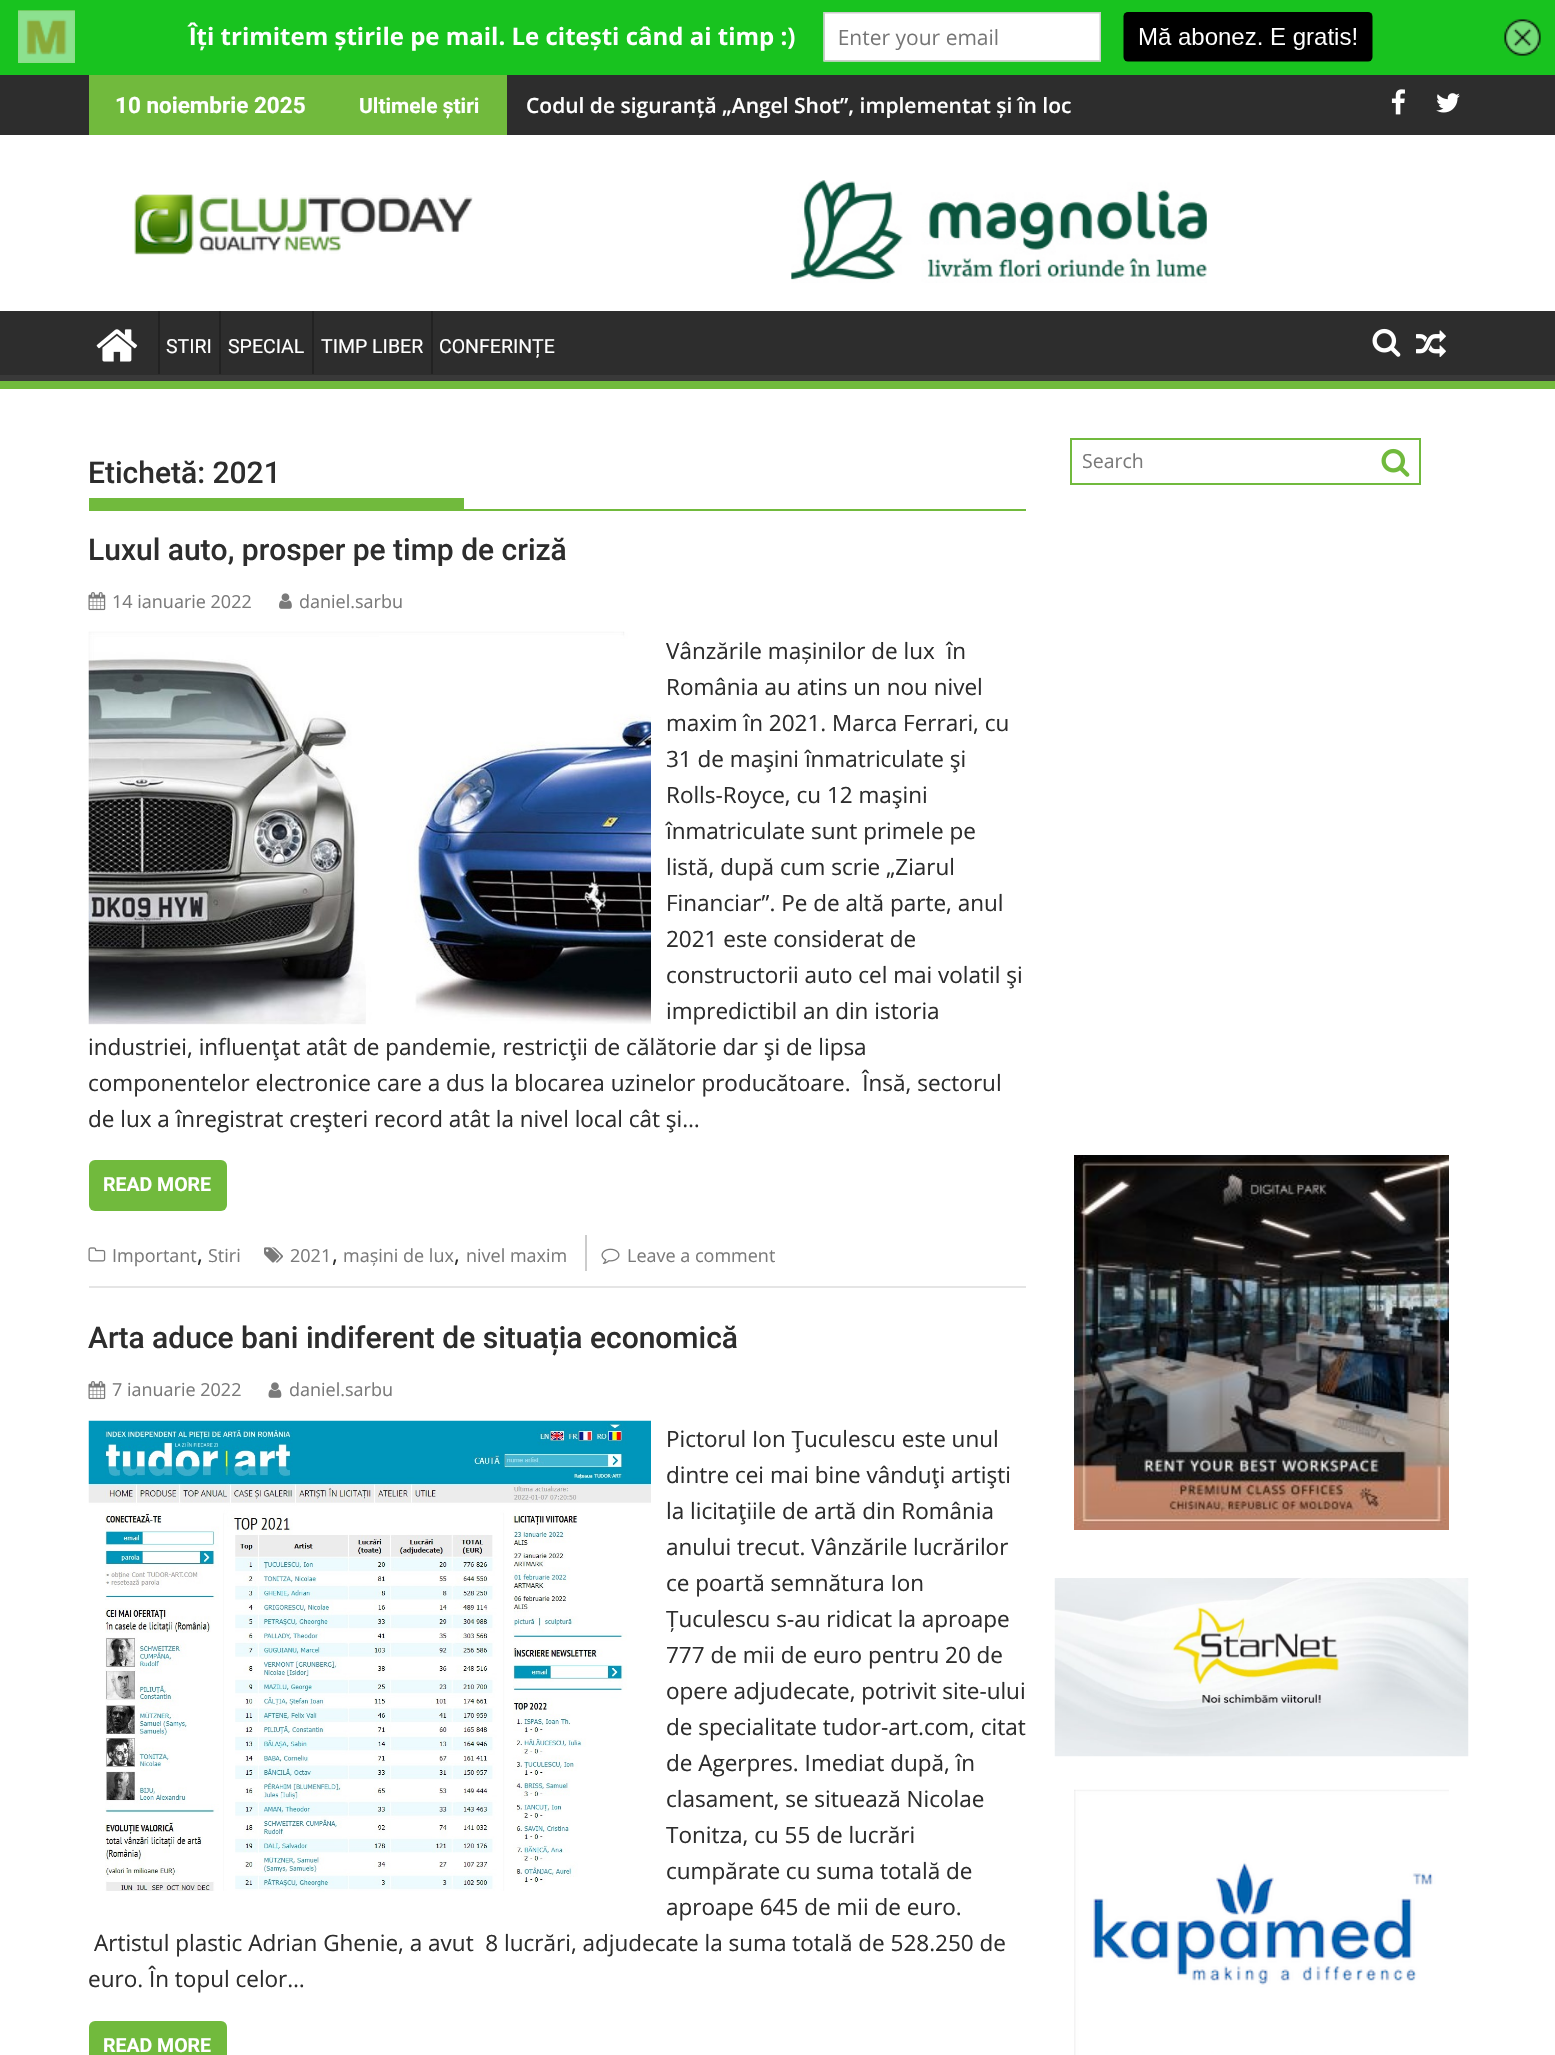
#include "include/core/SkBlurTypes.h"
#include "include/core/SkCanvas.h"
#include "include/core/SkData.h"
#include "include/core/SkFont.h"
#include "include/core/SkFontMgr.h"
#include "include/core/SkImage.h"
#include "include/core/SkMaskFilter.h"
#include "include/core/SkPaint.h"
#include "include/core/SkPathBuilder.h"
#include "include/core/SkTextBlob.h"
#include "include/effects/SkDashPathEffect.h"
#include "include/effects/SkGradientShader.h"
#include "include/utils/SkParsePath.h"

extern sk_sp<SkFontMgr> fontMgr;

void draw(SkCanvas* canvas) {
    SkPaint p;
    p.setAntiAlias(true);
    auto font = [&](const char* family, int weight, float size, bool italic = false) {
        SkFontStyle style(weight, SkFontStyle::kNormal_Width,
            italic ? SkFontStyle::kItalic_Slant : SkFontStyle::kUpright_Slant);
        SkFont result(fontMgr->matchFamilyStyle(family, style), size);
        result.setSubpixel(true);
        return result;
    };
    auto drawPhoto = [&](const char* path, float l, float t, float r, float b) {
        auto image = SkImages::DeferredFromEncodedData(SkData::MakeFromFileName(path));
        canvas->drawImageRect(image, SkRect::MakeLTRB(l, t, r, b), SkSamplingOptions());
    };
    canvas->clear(0xFFFFFFFF);
    drawPhoto("media/1.png", 0, 0, 1555, 75);
    p.setColor(0xFF2D2D2D);
    canvas->drawRect(SkRect::MakeLTRB(0, 75, 1555, 135), p);
    p.setColor(0xFF71BA3D);
    canvas->drawRect(SkRect::MakeLTRB(89, 75, 507, 135), p);
    auto font1 = font("Roboto", 700, 22.5f);
    p.setColor(0xFFFFFFFF);
    canvas->drawString("10 noiembrie 2025", 115, 113, font1, p);
    auto font2 = font("Roboto", 700, 21);
    canvas->drawString("Ultimele știri", 359, 113, font2, p);
    auto font3 = font("Open Sans", 600, 21);
    canvas->drawString("Codul de siguranță „Angel Shot”, implementat și în loc", 526, 113, font3, p);
    drawPhoto("media/2.png", 1391, 89, 1405, 115);
    drawPhoto("media/3.png", 1436, 93, 1460, 113);
    drawPhoto("media/4.png", 134, 194, 473, 255);
    drawPhoto("media/5.png", 791, 180, 1207, 283);
    p.setColor(0xFF2D2D2D);
    canvas->drawRect(SkRect::MakeLTRB(0, 311, 1555, 375), p);
    canvas->save();
    canvas->clipRect(SkRect::MakeLTRB(0, 311, 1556, 381));
    p.setColor(0xFF393939);
    canvas->drawPath(SkPathBuilder(SkPathFillType::kEvenOdd).moveTo(-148, 162).lineTo(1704, 162).lineTo(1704, 530).lineTo(-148, 530).close().moveTo(-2, 302).lineTo(1554, 302).cubicTo(1555, 302, 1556, 302, 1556, 303).lineTo(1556, 374).cubicTo(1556, 374, 1555, 375, 1554, 375).lineTo(-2, 375).cubicTo(-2, 375, -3, 374, -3, 374).lineTo(-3, 303).cubicTo(-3, 302, -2, 302, -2, 302).close().detach(), p);
    canvas->restore();
    p.setColor(0xFF71BA3D);
    canvas->drawRect(SkRect::MakeLTRB(0, 381, 1555, 389), p);
    drawPhoto("media/6.png", 96, 329, 138, 362);
    p.setColor(0xFF222222);
    canvas->drawRect(SkRect::MakeLTRB(158, 311, 160, 374), p);
    auto font4 = font("Roboto", 400, 19.5f);
    p.setColor(0xFFFFFFFF);
    canvas->drawString("STIRI", 166, 353, font4, p);
    p.setColor(0xFF222222);
    canvas->drawRect(SkRect::MakeLTRB(219, 311, 221, 374), p);
    p.setColor(0xFFFFFFFF);
    canvas->drawString("SPECIAL", 228, 353, font4, p);
    p.setColor(0xFF222222);
    canvas->drawRect(SkRect::MakeLTRB(312, 311, 314, 374), p);
    p.setColor(0xFFFFFFFF);
    canvas->drawString("TIMP LIBER", 321, 353, font4, p);
    p.setColor(0xFF222222);
    canvas->drawRect(SkRect::MakeLTRB(431, 311, 433, 374), p);
    p.setColor(0xFFFFFFFF);
    canvas->drawString("CONFERINȚE", 439, 353, font4, p);
    drawPhoto("media/7.png", 1372, 328, 1401, 357);
    drawPhoto("media/8.png", 1416, 330, 1446, 357);
    p.setColor(0xFF71BA3D);
    canvas->drawRect(SkRect::MakeLTRB(89, 509, 1026, 511), p);
    auto font5 = font("Roboto", 500, 30);
    p.setColor(0xFF2D2D2D);
    canvas->drawString("Etichetă: 2021", 88, 483, font5, p);
    p.setColor(0xFF71BA3D);
    canvas->drawRect(SkRect::MakeLTRB(89, 498, 464, 509), p);
    p.setColor(0xFFE5E5E5);
    canvas->drawRect(SkRect::MakeLTRB(89, 1286, 1026, 1288), p);
    p.setColor(0xFF2D2D2D);
    canvas->drawString("Luxul auto, prosper pe timp de criză", 88, 560, font5, p);
    drawPhoto("media/9.png", 88, 592, 106, 611);
    auto font6 = font("Open Sans", 400, 18);
    p.setColor(0xFF7A7A7A);
    canvas->drawString("14 ianuarie 2022", 112, 608, font6, p);
    drawPhoto("media/10.png", 279, 593, 292, 609);
    canvas->drawString("daniel.sarbu", 299, 608, font6, p);
    drawPhoto("media/11.png", 88, 631, 651, 1025);
    auto font7 = font("Open Sans", 400, 22.5f);
    p.setColor(0xFF2D2D2D);
    {
        const struct { const char* s; float x, y; } items[] = {
            {"Vânzările mașinilor de lux  în", 666, 659},
            {"România au atins un nou nivel", 666, 695},
            {"maxim în 2021. Marca Ferrari, cu", 666, 731},
            {"31 de maşini înmatriculate şi", 666, 767},
            {"Rolls-Royce, cu 12 maşini", 666, 803},
            {"înmatriculate sunt primele pe", 666, 839},
            {"listă, după cum scrie „Ziarul", 666, 875},
            {"Financiar”. Pe de altă parte, anul", 666, 911},
            {"2021 este considerat de", 666, 947},
            {"constructorii auto cel mai volatil şi", 666, 983},
            {"impredictibil an din istoria", 666, 1019},
            {"industriei, influenţat atât de pandemie, restricţii de călătorie dar şi de lipsa", 88, 1055},
            {"componentelor electronice care a dus la blocarea uzinelor producătoare.  Însă, sectorul", 88, 1091},
            {"de lux a înregistrat creşteri record atât la nivel local cât şi…", 88, 1127},
        };
        for (auto [s, x, y] : items) {
            canvas->drawString(s, x, y, font7, p);
        }
    }
    p.setColor(0xFF71BA3D);
    canvas->drawRoundRect(SkRect::MakeLTRB(89, 1160, 227, 1211), 6, 6, p);
    auto font8 = font("Roboto", 700, 19.5f);
    p.setColor(0xFFFFFFFF);
    canvas->drawString("READ MORE", 103, 1191, font8, p);
    drawPhoto("media/12.png", 88, 1247, 106, 1262);
    p.setColor(0xFF7A7A7A);
    canvas->drawString("Important", 112, 1262, font6, p);
    p.setColor(0xFF2D2D2D);
    canvas->drawString(",", 197, 1262, font7, p);
    p.setColor(0xFF7A7A7A);
    canvas->drawString("Stiri", 208, 1262, font6, p);
    drawPhoto("media/13.png", 264, 1247, 283, 1263);
    canvas->drawString("2021", 290, 1262, font6, p);
    p.setColor(0xFF2D2D2D);
    canvas->drawString(",", 332, 1262, font7, p);
    p.setColor(0xFF7A7A7A);
    canvas->drawString("mașini de lux", 343, 1262, font6, p);
    p.setColor(0xFF2D2D2D);
    canvas->drawString(",", 454, 1262, font7, p);
    p.setColor(0xFF7A7A7A);
    canvas->drawString("nivel maxim", 466, 1262, font6, p);
    p.setColor(0xFFCCCCCC);
    canvas->drawRect(SkRect::MakeLTRB(585, 1235, 587, 1271), p);
    drawPhoto("media/14.png", 601, 1248, 620, 1264);
    p.setColor(0xFF7A7A7A);
    canvas->drawString("Leave a comment", 627, 1262, font6, p);
    p.setColor(0xFF2D2D2D);
    canvas->drawString("Arta aduce bani indiferent de situația economică", 88, 1348, font5, p);
    drawPhoto("media/9.png", 88, 1381, 106, 1400);
    p.setColor(0xFF7A7A7A);
    canvas->drawString("7 ianuarie 2022", 112, 1396, font6, p);
    drawPhoto("media/15.png", 268, 1382, 282, 1398);
    canvas->drawString("daniel.sarbu", 289, 1396, font6, p);
    drawPhoto("media/16.png", 88, 1420, 651, 1892);
    p.setColor(0xFF2D2D2D);
    {
        const struct { const char* s; float x, y; } items[] = {
            {"Pictorul Ion Ţuculescu este unul", 666, 1447},
            {"dintre cei mai bine vânduţi artişti", 666, 1483},
            {"la licitaţiile de artă din România", 666, 1519},
            {"anului trecut. Vânzările lucrărilor", 666, 1555},
            {"ce poartă semnătura Ion", 666, 1591},
            {"Țuculescu s-au ridicat la aproape", 666, 1627},
            {"777 de mii de euro pentru 20 de", 666, 1663},
            {"opere adjudecate, potrivit site-ului", 666, 1699},
            {"de specialitate tudor-art.com, citat", 666, 1735},
            {"de Agerpres. Imediat după, în", 666, 1771},
            {"clasament, se situează Nicolae", 666, 1807},
            {"Tonitza, cu 55 de lucrări", 666, 1843},
            {"cumpărate cu suma totală de", 666, 1879},
            {"aproape 645 de mii de euro.", 666, 1915},
            {"Artistul plastic Adrian Ghenie, a avut  8 lucrări, adjudecate la suma totală de 528.250 de", 94, 1951},
            {"euro. În topul celor…", 88, 1987},
        };
        for (auto [s, x, y] : items) {
            canvas->drawString(s, x, y, font7, p);
        }
    }
    p.setColor(0xFF71BA3D);
    canvas->drawRoundRect(SkRect::MakeLTRB(89, 2021, 227, 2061), 6, 6, p);
    p.setColor(0xFFFFFFFF);
    canvas->drawString("READ MORE", 103, 2052, font8, p);
    p.setStyle(SkPaint::kStroke_Style);
    p.setStrokeWidth(2);
    p.setColor(0xFF71BA3D);
    canvas->drawRect(SkRect::MakeLTRB(1071, 439, 1420, 484), p);
    auto font9 = font("Open Sans", 400, 19.5f);
    p.setStyle(SkPaint::kFill_Style);
    p.setColor(0xFF7A7A7A);
    canvas->drawString("Search", 1082, 468, font9, p);
    drawPhoto("media/17.png", 1381, 448, 1410, 477);
    drawPhoto("media/18.png", 1074, 1155, 1449, 1530);
    drawPhoto("media/19.png", 1054, 1578, 1469, 1757);
    drawPhoto("media/20.png", 1074, 1789, 1449, 2055);
}
